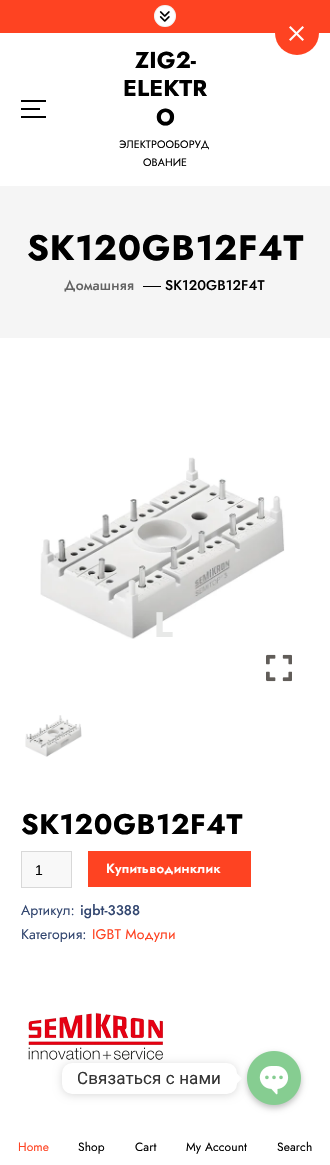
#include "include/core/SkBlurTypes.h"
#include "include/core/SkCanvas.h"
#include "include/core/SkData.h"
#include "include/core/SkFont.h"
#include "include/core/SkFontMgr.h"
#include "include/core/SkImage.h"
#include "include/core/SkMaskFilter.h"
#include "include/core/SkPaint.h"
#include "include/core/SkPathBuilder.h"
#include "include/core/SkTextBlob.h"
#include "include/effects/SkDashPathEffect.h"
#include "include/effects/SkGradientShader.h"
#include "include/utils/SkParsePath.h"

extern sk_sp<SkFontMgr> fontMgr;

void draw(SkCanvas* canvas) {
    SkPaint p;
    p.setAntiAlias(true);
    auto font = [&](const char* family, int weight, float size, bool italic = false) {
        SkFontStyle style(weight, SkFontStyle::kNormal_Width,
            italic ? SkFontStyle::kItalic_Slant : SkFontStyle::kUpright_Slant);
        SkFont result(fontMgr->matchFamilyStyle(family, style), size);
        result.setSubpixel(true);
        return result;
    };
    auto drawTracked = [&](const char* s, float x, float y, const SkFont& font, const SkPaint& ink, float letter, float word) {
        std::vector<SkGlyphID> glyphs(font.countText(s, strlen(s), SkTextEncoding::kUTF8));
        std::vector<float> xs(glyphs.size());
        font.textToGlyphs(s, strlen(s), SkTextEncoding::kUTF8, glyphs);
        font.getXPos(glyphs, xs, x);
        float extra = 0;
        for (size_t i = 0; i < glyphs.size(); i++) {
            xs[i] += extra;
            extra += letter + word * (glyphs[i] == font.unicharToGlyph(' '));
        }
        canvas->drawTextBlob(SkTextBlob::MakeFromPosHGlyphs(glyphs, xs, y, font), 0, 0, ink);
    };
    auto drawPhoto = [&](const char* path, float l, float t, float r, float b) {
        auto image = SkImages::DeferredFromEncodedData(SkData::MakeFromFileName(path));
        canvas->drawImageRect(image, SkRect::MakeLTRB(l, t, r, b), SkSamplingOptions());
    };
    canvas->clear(0xFFFFFFFF);
    p.setColor(0xFFFE4322);
    canvas->drawRect(SkRect::MakeLTRB(0, 0, 330, 33), p);
    p.setColor(0xFFFFFFFF);
    canvas->drawCircle(165, 16, 11, p);
    p.setStyle(SkPaint::kStroke_Style);
    p.setStrokeWidth(1);
    p.setColor(0x33BDBDBD);
    canvas->drawCircle(165, 16, 10.5f, p);
    drawPhoto("media/1.png", 159, 11, 170, 22);
    p.setStyle(SkPaint::kFill_Style);
    {
        const struct { float l, t, r, b; SkColor color; } items[] = {
            {21, 100, 46, 102, 0xFF000000},
            {21, 108, 40, 110, 0xFF000000},
            {21, 116, 46, 118, 0xFF000000},
        };
        for (auto [l, t, r, b, color] : items) {
            p.setColor(color);
            canvas->drawRect(SkRect::MakeLTRB(l, t, r, b), p);
        }
    }
    auto font1 = font("Jost", 700, 23);
    {
        const struct { const char* s; float x, y; } items[] = {
            {"ZIG2-", 135, 68},
            {"ELEKTR", 123, 96},
            {"O", 156, 125},
        };
        for (auto [s, x, y] : items) {
            drawTracked(s, x, y, font1, p, 0.1f, 0);
        }
    }
    auto font2 = font("Jost", 400, 10.75f);
    drawTracked("ЭЛЕКТРООБОРУД", 119, 148, font2, p, 0.1f, 0);
    drawTracked("ОВАНИЕ", 143, 166, font2, p, 0.1f, 0);
    p.setColor(0xFFF5F5F5);
    canvas->drawRect(SkRect::MakeLTRB(0, 186, 330, 338), p);
    auto font3 = font("Jost", 700, 35.25f);
    p.setColor(0xFF000000);
    drawTracked("SK120GB12F4T", 27, 260, font3, p, 0.75f, 0);
    auto font4 = font("Jost", 500, 14);
    p.setColor(0xFF626262);
    drawTracked("Домашняя", 64, 290, font4, p, 0.1f, 0);
    p.setColor(0xFF000000);
    canvas->drawRect(SkRect::MakeLTRB(143, 286, 161, 287), p);
    drawTracked("SK120GB12F4T", 165, 290, font4, p, 0.1f, 0);
    p.setColor(0xFFFE4322);
    canvas->drawCircle(297, 33, 22, p);
    p.setColor(0xFFFFFEFE);
    canvas->drawPath(SkPathBuilder().moveTo(289, 39.5f).lineTo(302.5f, 26).lineTo(304, 27.5f).lineTo(290.5f, 41).close().detach(), p);
    p.setColor(0xFFFFFFFF);
    canvas->drawPath(SkPathBuilder().moveTo(302.5f, 41).lineTo(289, 27.5f).lineTo(290.5f, 26).lineTo(304, 39.5f).close().detach(), p);
    drawPhoto("media/2.png", 40, 457, 285, 639);
    p.setColor(0xFFE8E9E8);
    drawTracked("L", 154, 637, font3, p, 0.1f, 0);
    drawPhoto("media/3.png", 266, 654, 292, 682);
    drawPhoto("media/4.png", 25, 715, 82, 757);
    auto font5 = font("Jost", 700, 28.25f);
    p.setColor(0xFF000000);
    drawTracked("SK120GB12F4T", 21, 834, font5, p, 0.6f, 0);
    p.setColor(0xFFF8F8F8);
    canvas->drawRect(SkRect::MakeLTRB(21.5f, 851.5f, 71.5f, 887.5f), p);
    p.setStyle(SkPaint::kStroke_Style);
    p.setColor(0xFFD8D8D8);
    canvas->drawRect(SkRect::MakeLTRB(21.5f, 851.5f, 71.5f, 887.5f), p);
    auto font6 = font("Liberation Sans", 400, 14);
    p.setStyle(SkPaint::kFill_Style);
    p.setColor(0xFF000000);
    canvas->drawString("1", 35, 875, font6, p);
    p.setColor(0xFFFE4322);
    canvas->drawRect(SkRect::MakeLTRB(88, 851, 251, 887), p);
    auto font7 = font("Jost", 600, 13.25f);
    p.setColor(0xFFFFFFFF);
    drawTracked("Купить в один клик", 106, 873, font7, p, 0.25f, 0);
    auto font8 = font("Jost", 400, 14);
    p.setColor(0xFF334770);
    drawTracked("Артикул:", 21, 915, font8, p, 0.1f, 0);
    drawTracked("igbt-3388", 80, 915, font4, p, 0.1f, 0);
    drawTracked("Категория:", 21, 939, font8, p, 0.1f, 0);
    p.setColor(0xFFFE4322);
    drawTracked("IGBT Модули", 92, 939, font8, p, 0.1f, 0);
    drawPhoto("media/5.png", 28, 1012, 163, 1060);
    p.setColor(0x26000000);
    p.setMaskFilter(SkMaskFilter::MakeBlur(kNormal_SkBlurStyle, 4));
    canvas->drawRoundRect(SkRect::MakeLTRB(62, 1064, 237, 1095), 10, 10, p);
    p.setMaskFilter(nullptr);
    p.setColor(0xFFFFFFFF);
    canvas->drawRoundRect(SkRect::MakeLTRB(62, 1063, 237, 1094), 10, 10, p);
    auto font9 = font("Roboto", 400, 17);
    p.setColor(0xFF333333);
    drawTracked("Связаться с нами", 77, 1084, font9, p, 0.1f, 0);
    p.setColor(0xFFFFFFFF);
    canvas->drawPath(SkPathBuilder().moveTo(237, 1083.5f).lineTo(237, 1073.5f).lineTo(242, 1078.5f).close().detach(), p);
    p.setColor(0x40000000);
    p.setMaskFilter(SkMaskFilter::MakeBlur(kNormal_SkBlurStyle, 3));
    canvas->drawRoundRect(SkRect::MakeLTRB(247, 1054, 301, 1108), 27, 27, p);
    p.setMaskFilter(nullptr);
    drawPhoto("media/6.png", 247, 1051, 301, 1105);
    auto font10 = font("Jost", 400, 12);
    p.setColor(0xFFFE4322);
    drawTracked("Home", 18, 1151, font10, p, 0.1f, 0);
    p.setColor(0xFF000000);
    {
        const struct { const char* s; float x, y; } items[] = {
            {"Shop", 78, 1151},
            {"Cart", 135, 1151},
            {"My Account", 186, 1151},
            {"Search", 277, 1151},
        };
        for (auto [s, x, y] : items) {
            drawTracked(s, x, y, font10, p, 0.1f, 0);
        }
    }
}
